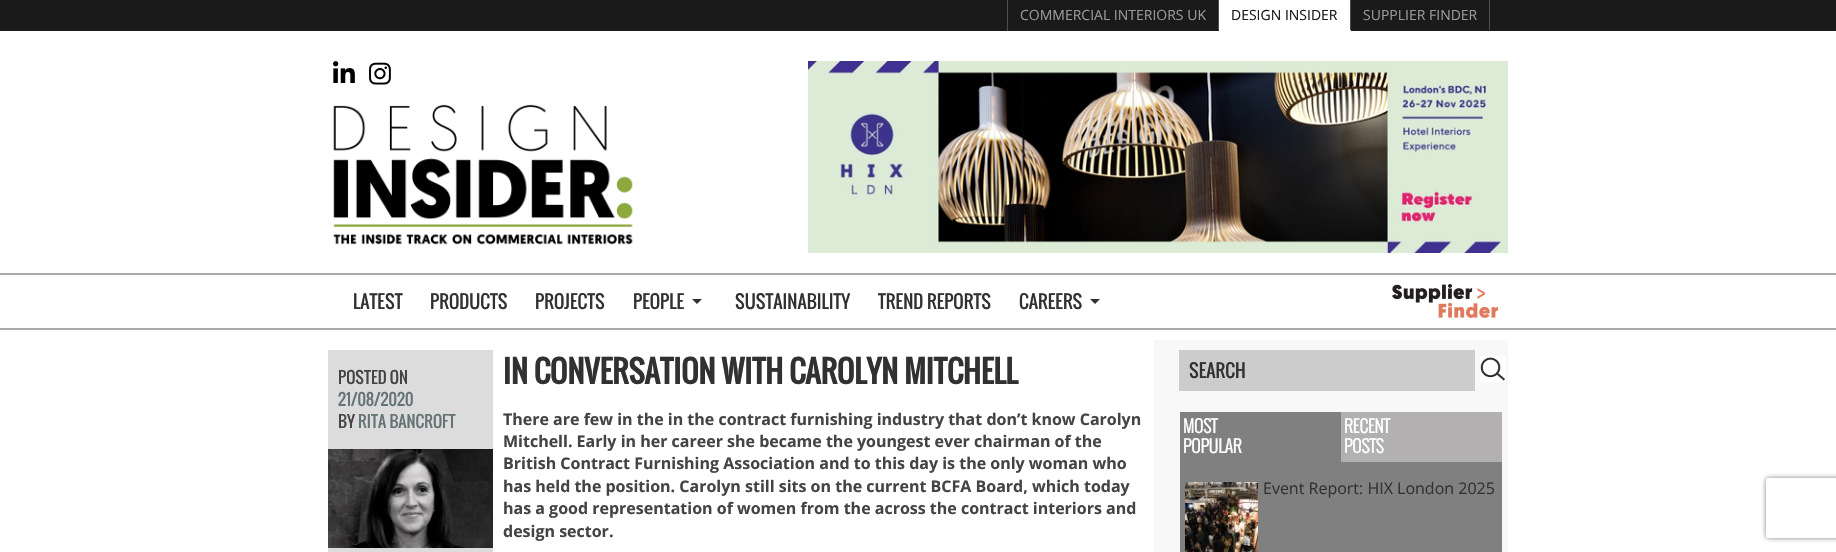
#include "include/core/SkBlurTypes.h"
#include "include/core/SkCanvas.h"
#include "include/core/SkData.h"
#include "include/core/SkFont.h"
#include "include/core/SkFontMgr.h"
#include "include/core/SkImage.h"
#include "include/core/SkMaskFilter.h"
#include "include/core/SkPaint.h"
#include "include/core/SkPathBuilder.h"
#include "include/core/SkTextBlob.h"
#include "include/effects/SkDashPathEffect.h"
#include "include/effects/SkGradientShader.h"
#include "include/utils/SkParsePath.h"

extern sk_sp<SkFontMgr> fontMgr;

void draw(SkCanvas* canvas) {
    SkPaint p;
    p.setAntiAlias(true);
    auto font = [&](const char* family, int weight, float size, bool italic = false) {
        SkFontStyle style(weight, SkFontStyle::kNormal_Width,
            italic ? SkFontStyle::kItalic_Slant : SkFontStyle::kUpright_Slant);
        SkFont result(fontMgr->matchFamilyStyle(family, style), size);
        result.setSubpixel(true);
        return result;
    };
    auto drawPhoto = [&](const char* path, float l, float t, float r, float b) {
        auto image = SkImages::DeferredFromEncodedData(SkData::MakeFromFileName(path));
        canvas->drawImageRect(image, SkRect::MakeLTRB(l, t, r, b), SkSamplingOptions());
    };
    canvas->clear(0xFFFFFFFF);
    {
        const struct { float l, t, r, b; SkColor color; } items[] = {
            {0, 0, 1836, 31, 0xFF1A1A1A},
            {1218, 0, 1219, 31, 0xFF4D4D4D},
            {1218, 30, 1219, 31, 0xFF1A1A1A},
            {1007, 0, 1008, 31, 0xFF4D4D4D},
        };
        for (auto [l, t, r, b, color] : items) {
            p.setColor(color);
            canvas->drawRect(SkRect::MakeLTRB(l, t, r, b), p);
        }
    }
    auto font1 = font("Open Sans", 400, 14);
    p.setColor(0xFF999999);
    canvas->drawString("COMMERCIAL INTERIORS UK", 1020, 20, font1, p);
    {
        const struct { float l, t, r, b; SkColor color; } items[] = {
            {1219, 0, 1350, 30, 0xFFFFFFFF},
            {1350, 0, 1351, 31, 0xFF4D4D4D},
            {1219, 30, 1351, 31, 0xFFFFFFFF},
        };
        for (auto [l, t, r, b, color] : items) {
            p.setColor(color);
            canvas->drawRect(SkRect::MakeLTRB(l, t, r, b), p);
        }
    }
    p.setColor(0xFF1A1A1A);
    canvas->drawString("DESIGN INSIDER", 1231, 20, font1, p);
    p.setColor(0xFF4D4D4D);
    canvas->drawRect(SkRect::MakeLTRB(1489, 0, 1490, 31), p);
    p.setColor(0xFF1A1A1A);
    canvas->drawRect(SkRect::MakeLTRB(1489, 30, 1490, 31), p);
    p.setColor(0xFF999999);
    canvas->drawString("SUPPLIER FINDER", 1363, 20, font1, p);
    drawPhoto("media/1.png", 333, 61, 355, 83);
    drawPhoto("media/2.png", 369, 62, 391, 85);
    drawPhoto("media/3.png", 333, 104, 633, 245);
    drawPhoto("media/4.png", 808, 61, 1508, 253);
    p.setColor(0xFFAAAAAA);
    canvas->drawRect(SkRect::MakeLTRB(0, 273, 1836, 275), p);
    canvas->drawRect(SkRect::MakeLTRB(0, 328, 1836, 330), p);
    auto font2 = font("Oswald", 400, 18);
    p.setColor(0xFF313131);
    {
        const struct { const char* s; float x, y; } items[] = {
            {"LATEST", 353, 309},
            {"PRODUCTS", 430, 309},
            {"PROJECTS", 535, 309},
            {"PEOPLE", 633, 309},
        };
        for (auto [s, x, y] : items) {
            canvas->drawString(s, x, y, font2, p);
        }
    }
    canvas->drawPath(SkPathBuilder().moveTo(692, 299).lineTo(702, 299).lineTo(697, 304).close().detach(), p);
    {
        const struct { const char* s; float x, y; } items[] = {
            {"SUSTAINABILITY", 735, 309},
            {"TREND REPORTS", 878, 309},
            {"CAREERS", 1019, 309},
        };
        for (auto [s, x, y] : items) {
            canvas->drawString(s, x, y, font2, p);
        }
    }
    canvas->drawPath(SkPathBuilder().moveTo(1090, 299).lineTo(1100, 299).lineTo(1095, 304).close().detach(), p);
    drawPhoto("media/5.png", 1392, 284, 1498, 318);
    p.setColor(0xFFDCDCDC);
    canvas->drawRect(SkRect::MakeLTRB(328, 350, 493, 552), p);
    auto font3 = font("Oswald", 400, 16);
    p.setColor(0xFF444444);
    canvas->drawString("POSTED ON", 338, 384, font3, p);
    p.setColor(0xFF647374);
    canvas->drawString("21/08/2020", 338, 406, font3, p);
    p.setColor(0xFF444444);
    canvas->drawString("BY", 338, 428, font3, p);
    p.setColor(0xFF647374);
    canvas->drawString("RITA BANCROFT", 358, 428, font3, p);
    drawPhoto("media/6.png", 328, 449, 493, 548);
    auto font4 = font("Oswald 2", 700, 30);
    p.setColor(0xFF313131);
    canvas->drawString("IN CONVERSATION WITH CAROLYN MITCHELL", 503, 384, font4, p);
    auto font5 = font("Open Sans", 700, 16);
    p.setColor(0xFF444444);
    {
        const struct { const char* s; float x, y; } items[] = {
            {"There are few in the in the contract furnishing industry that don’t know Carolyn", 503, 425},
            {"Mitchell. Early in her career she became the youngest ever chairman of the", 503, 447},
            {"British Contract Furnishing Association and to this day is the only woman who", 503, 469},
            {"has held the position. Carolyn still sits on the current BCFA Board, which today", 503, 492},
            {"has a good representation of women from the across the contract interiors and", 503, 514},
            {"design sector.", 503, 537},
        };
        for (auto [s, x, y] : items) {
            canvas->drawString(s, x, y, font5, p);
        }
    }
    p.setColor(0xFFF8F8F8);
    canvas->drawRect(SkRect::MakeLTRB(1154, 340, 1508, 552), p);
    p.setColor(0xFFCCCCCC);
    canvas->drawRect(SkRect::MakeLTRB(1179, 350, 1475, 391), p);
    p.setColor(0xFF313131);
    canvas->drawString("SEARCH", 1189, 378, font2, p);
    p.setColor(0xFFFFFFFF);
    canvas->drawRect(SkRect::MakeLTRB(1480, 356, 1506, 382), p);
    drawPhoto("media/7.png", 1480, 357, 1506, 381);
    p.setColor(0xFFB2B0B0);
    canvas->drawRect(SkRect::MakeLTRB(1341, 412, 1502, 462), p);
    p.setColor(0xFF808080);
    canvas->drawRect(SkRect::MakeLTRB(1180, 412, 1341, 462), p);
    auto font6 = font("Oswald", 700, 17);
    p.setColor(0xFFFFFFFF);
    {
        const struct { const char* s; float x, y; } items[] = {
            {"MOST", 1183, 433},
            {"POPULAR", 1183, 453},
            {"RECENT", 1344, 433},
            {"POSTS", 1344, 453},
        };
        for (auto [s, x, y] : items) {
            canvas->drawString(s, x, y, font6, p);
        }
    }
    p.setColor(0xFF808080);
    canvas->drawRect(SkRect::MakeLTRB(1180, 462, 1502, 552), p);
    drawPhoto("media/8.png", 1185, 482, 1258, 552);
    auto font7 = font("Open Sans", 400, 16);
    p.setColor(0xFF313131);
    canvas->drawString("Event Report: HIX London 2025", 1263, 494, font7, p);
    canvas->save();
    canvas->clipPath(SkPathBuilder(SkPathFillType::kEvenOdd).moveTo(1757, 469).lineTo(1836, 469).lineTo(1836, 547).lineTo(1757, 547).close().moveTo(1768, 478).lineTo(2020, 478).cubicTo(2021, 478, 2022, 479, 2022, 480).lineTo(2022, 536).cubicTo(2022, 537, 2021, 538, 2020, 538).lineTo(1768, 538).cubicTo(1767, 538, 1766, 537, 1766, 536).lineTo(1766, 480).cubicTo(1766, 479, 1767, 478, 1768, 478).close().detach(), true);
    p.setColor(0xFF808080);
    p.setMaskFilter(SkMaskFilter::MakeBlur(kNormal_SkBlurStyle, 2.5f));
    canvas->drawRoundRect(SkRect::MakeLTRB(1766, 478, 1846, 538), 2, 2, p);
    p.setMaskFilter(nullptr);
    canvas->restore();
}
